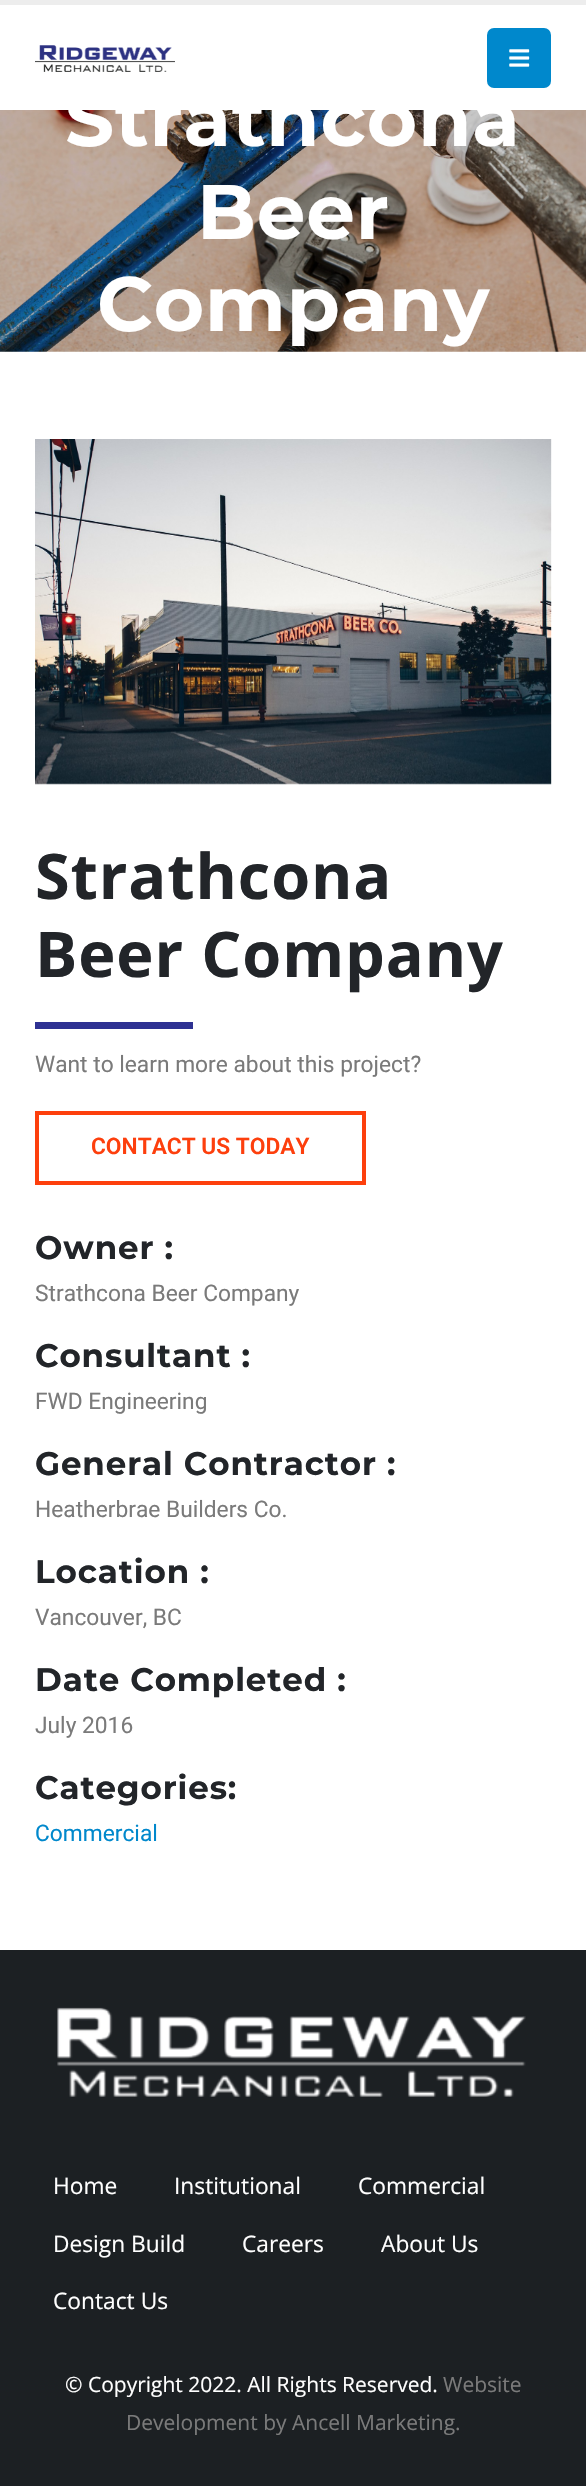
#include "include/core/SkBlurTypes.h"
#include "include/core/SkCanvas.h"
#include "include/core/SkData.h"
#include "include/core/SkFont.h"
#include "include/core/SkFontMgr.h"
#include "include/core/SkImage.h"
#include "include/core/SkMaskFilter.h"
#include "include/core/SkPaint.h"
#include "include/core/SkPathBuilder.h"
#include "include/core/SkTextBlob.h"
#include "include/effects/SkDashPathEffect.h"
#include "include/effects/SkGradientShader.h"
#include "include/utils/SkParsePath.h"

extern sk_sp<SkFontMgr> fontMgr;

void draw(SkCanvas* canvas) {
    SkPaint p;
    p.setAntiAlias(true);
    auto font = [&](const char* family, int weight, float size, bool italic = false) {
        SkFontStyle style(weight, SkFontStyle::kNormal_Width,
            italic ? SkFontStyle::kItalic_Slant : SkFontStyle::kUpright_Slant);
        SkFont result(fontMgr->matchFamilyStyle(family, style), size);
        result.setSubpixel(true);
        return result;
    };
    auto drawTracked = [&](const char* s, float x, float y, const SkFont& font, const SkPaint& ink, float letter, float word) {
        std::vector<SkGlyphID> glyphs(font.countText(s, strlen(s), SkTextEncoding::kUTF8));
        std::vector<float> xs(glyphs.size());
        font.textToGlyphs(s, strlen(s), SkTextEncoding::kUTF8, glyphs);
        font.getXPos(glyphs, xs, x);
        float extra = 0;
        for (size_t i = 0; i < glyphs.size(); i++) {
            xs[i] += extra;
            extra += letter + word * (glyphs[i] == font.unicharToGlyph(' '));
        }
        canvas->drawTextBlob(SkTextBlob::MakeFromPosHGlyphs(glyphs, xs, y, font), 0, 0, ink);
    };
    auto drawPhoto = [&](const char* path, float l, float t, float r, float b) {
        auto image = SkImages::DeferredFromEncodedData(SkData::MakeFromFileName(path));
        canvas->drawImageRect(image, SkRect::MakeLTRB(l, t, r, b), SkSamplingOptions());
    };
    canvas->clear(0xFFFFFFFF);
    p.setColor(0xFFEDEDED);
    canvas->drawRect(SkRect::MakeLTRB(0, 0, 586, 5), p);
    drawPhoto("media/1.png", 35, 45, 175, 72);
    p.setColor(0xFF0088CC);
    canvas->drawRoundRect(SkRect::MakeLTRB(487, 28, 551, 88), 7, 7, p);
    drawPhoto("media/2.png", 509, 49, 530, 67);
    drawPhoto("media/3.png", 0, 110, 586, 352);
    auto font1 = font("Montserrat", 700, 77);
    p.setColor(0xFFFFFFFF);
    {
        const struct { const char* s; float x, y; } items[] = {
            {"Strathcona", 65, 146},
            {"Beer", 197, 239},
            {"Company", 97, 331},
        };
        for (auto [s, x, y] : items) {
            drawTracked(s, x, y, font1, p, 0.9f, 0);
        }
    }
    drawPhoto("media/4.png", 35, 439, 552, 785);
    auto font2 = font("Open Sans", 700, 63);
    p.setColor(0xFF222529);
    drawTracked("Strathcona", 35, 899, font2, p, 0.9f, 0);
    drawTracked("Beer Company", 35, 977, font2, p, 0.9f, 0);
    p.setColor(0xFF2E3192);
    canvas->drawRect(SkRect::MakeLTRB(35, 1022, 193, 1029), p);
    auto font3 = font("Roboto", 400, 22.75f);
    p.setColor(0xFF7A7A7A);
    canvas->drawString("Want to learn more about this project?", 35, 1072, font3, p);
    p.setStyle(SkPaint::kStroke_Style);
    p.setStrokeWidth(4);
    p.setColor(0xFFFD3F0D);
    canvas->drawRect(SkRect::MakeLTRB(37, 1113, 364, 1183), p);
    auto font4 = font("Roboto", 600, 22.75f);
    p.setStyle(SkPaint::kFill_Style);
    canvas->drawString("CONTACT US TODAY", 91, 1154, font4, p);
    auto font5 = font("Montserrat", 700, 32.5f);
    p.setColor(0xFF222529);
    drawTracked("Owner :", 35, 1259, font5, p, 0.9f, 0);
    p.setColor(0xFF7A7A7A);
    canvas->drawString("Strathcona Beer Company", 35, 1301, font3, p);
    p.setColor(0xFF222529);
    drawTracked("Consultant :", 35, 1367, font5, p, 0.9f, 0);
    p.setColor(0xFF7A7A7A);
    canvas->drawString("FWD Engineering", 35, 1409, font3, p);
    p.setColor(0xFF222529);
    drawTracked("General Contractor :", 35, 1475, font5, p, 0.9f, 0);
    p.setColor(0xFF7A7A7A);
    canvas->drawString("Heatherbrae Builders Co.", 35, 1517, font3, p);
    p.setColor(0xFF222529);
    drawTracked("Location :", 35, 1583, font5, p, 0.9f, 0);
    p.setColor(0xFF7A7A7A);
    canvas->drawString("Vancouver, BC", 35, 1625, font3, p);
    p.setColor(0xFF222529);
    drawTracked("Date Completed :", 35, 1691, font5, p, 0.9f, 0);
    p.setColor(0xFF7A7A7A);
    canvas->drawString("July 2016", 35, 1733, font3, p);
    p.setColor(0xFF222529);
    drawTracked("Categories:", 35, 1799, font5, p, 0.9f, 0);
    p.setColor(0xFF0088CC);
    canvas->drawString("Commercial", 35, 1841, font3, p);
    p.setColor(0xFF1C2023);
    canvas->drawRect(SkRect::MakeLTRB(0, 1950, 586, 2486), p);
    drawPhoto("media/5.png", 57, 2007, 526, 2097);
    auto font6 = font("Open Sans", 400, 22.75f);
    p.setColor(0xFFFFFFFF);
    {
        const struct { const char* s; float x, y; } items[] = {
            {"Home", 53, 2194},
            {"Institutional", 174, 2194},
            {"Commercial", 358, 2194},
            {"Design Build", 53, 2252},
            {"Careers", 242, 2252},
            {"About Us", 381, 2252},
            {"Contact Us", 53, 2309},
        };
        for (auto [s, x, y] : items) {
            canvas->drawString(s, x, y, font6, p);
        }
    }
    auto font7 = font("Open Sans", 400, 21);
    canvas->drawString("© Copyright 2022. All Rights Reserved.", 65, 2392, font7, p);
    p.setColor(0xFF7A7A7A);
    canvas->drawString("Website", 443, 2392, font7, p);
    canvas->drawString("Development by Ancell Marketing.", 126, 2430, font7, p);
}
